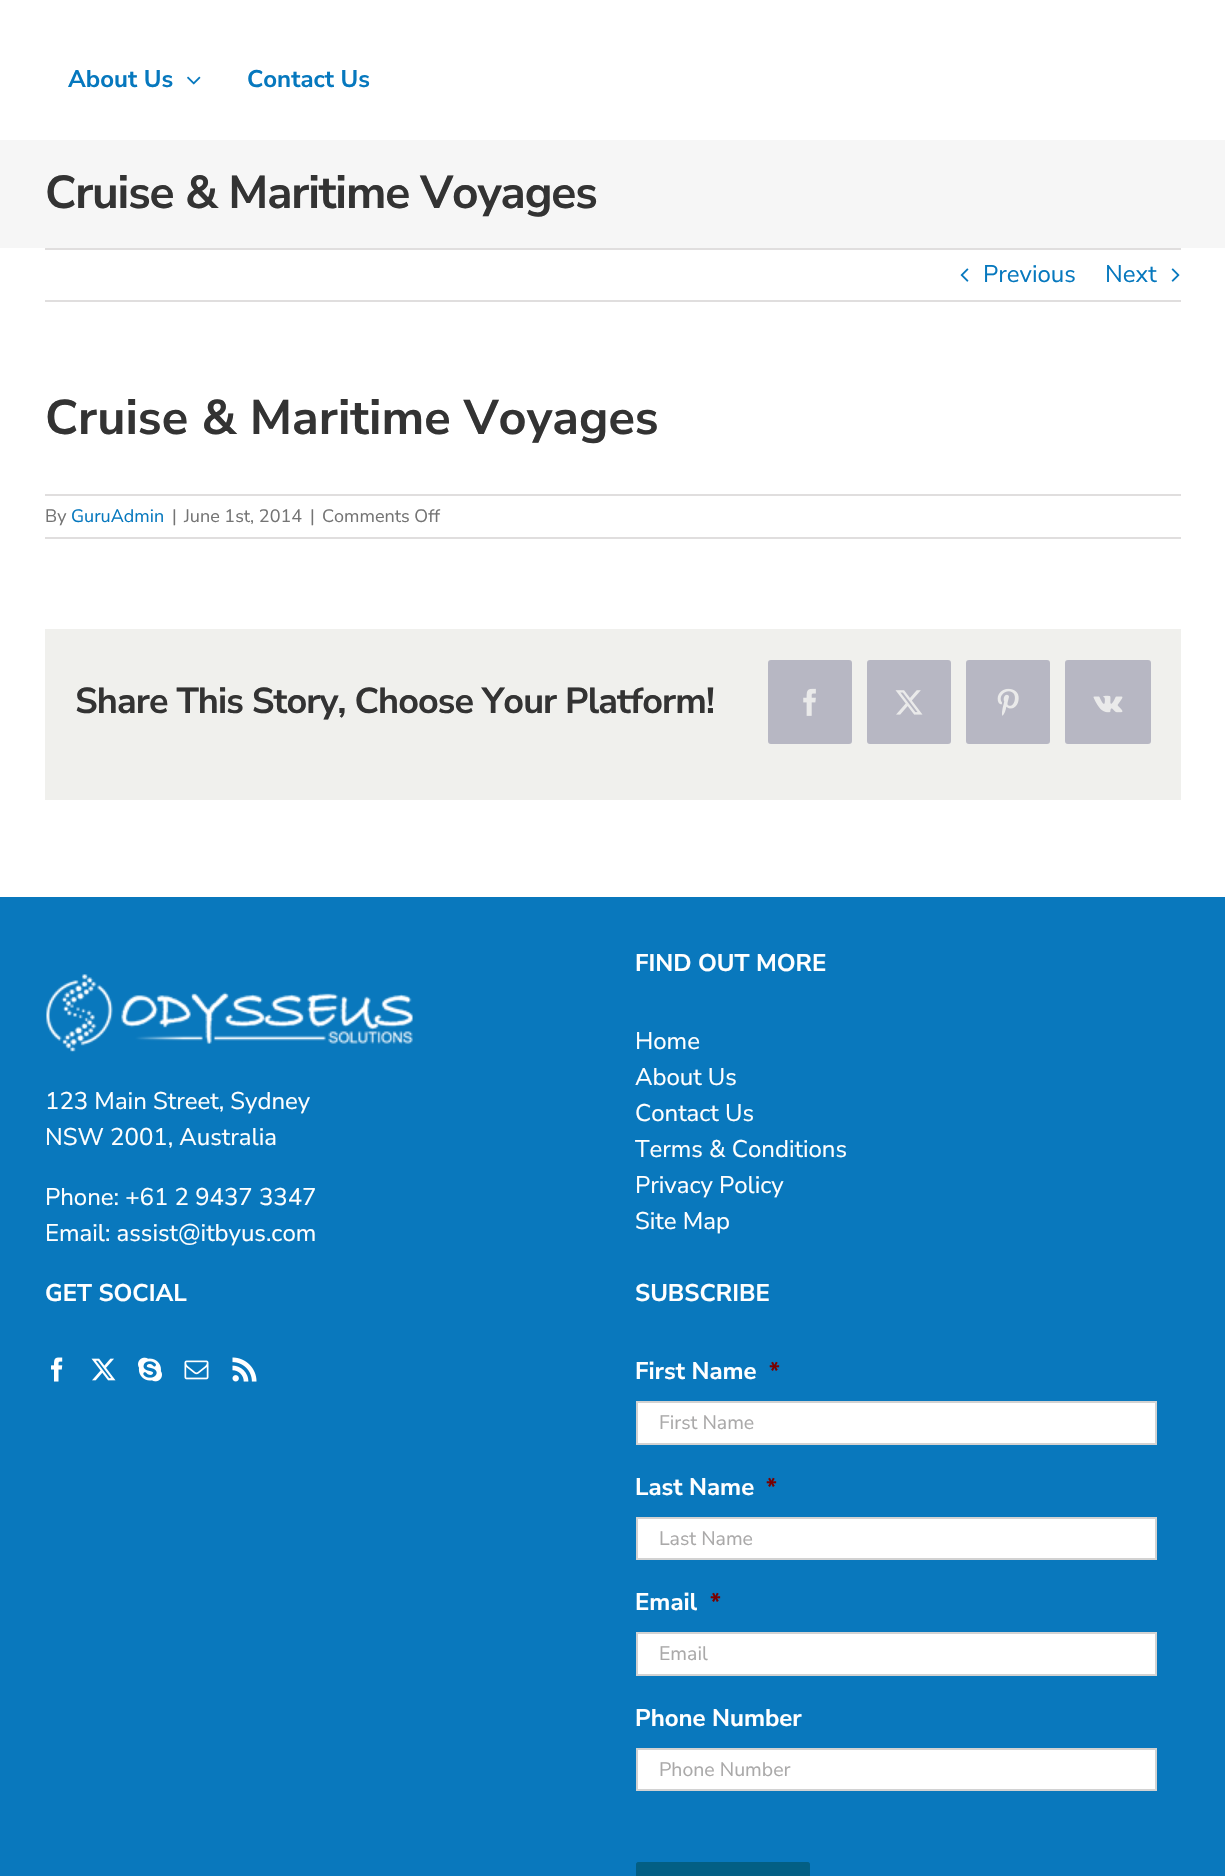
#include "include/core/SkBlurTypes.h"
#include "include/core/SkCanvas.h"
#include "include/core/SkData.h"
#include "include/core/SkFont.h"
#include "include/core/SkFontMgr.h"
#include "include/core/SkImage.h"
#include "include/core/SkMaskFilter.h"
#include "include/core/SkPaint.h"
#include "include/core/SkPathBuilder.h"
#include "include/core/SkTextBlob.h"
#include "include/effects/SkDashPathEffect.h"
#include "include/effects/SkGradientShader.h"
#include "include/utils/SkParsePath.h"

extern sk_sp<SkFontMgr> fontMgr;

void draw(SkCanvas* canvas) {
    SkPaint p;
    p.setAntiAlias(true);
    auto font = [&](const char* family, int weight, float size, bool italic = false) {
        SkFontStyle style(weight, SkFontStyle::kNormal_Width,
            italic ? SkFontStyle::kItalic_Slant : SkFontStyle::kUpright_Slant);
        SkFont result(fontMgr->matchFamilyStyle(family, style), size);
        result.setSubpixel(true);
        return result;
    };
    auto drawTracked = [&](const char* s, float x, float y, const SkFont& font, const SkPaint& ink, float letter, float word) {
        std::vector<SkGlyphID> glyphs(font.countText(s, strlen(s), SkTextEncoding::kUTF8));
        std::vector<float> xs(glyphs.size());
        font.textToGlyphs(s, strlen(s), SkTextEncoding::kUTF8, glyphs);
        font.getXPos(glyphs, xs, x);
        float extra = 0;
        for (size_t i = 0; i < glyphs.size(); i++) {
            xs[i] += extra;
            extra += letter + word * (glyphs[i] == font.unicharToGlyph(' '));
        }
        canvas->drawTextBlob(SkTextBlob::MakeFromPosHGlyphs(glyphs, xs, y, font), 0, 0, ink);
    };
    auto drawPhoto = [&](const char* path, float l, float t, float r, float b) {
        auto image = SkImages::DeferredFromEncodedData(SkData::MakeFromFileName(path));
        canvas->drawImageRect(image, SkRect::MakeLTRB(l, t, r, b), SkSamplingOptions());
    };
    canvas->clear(0xFFFFFFFF);
    auto font1 = font("Nunito Sans", 700, 24);
    p.setColor(0xFF0678BE);
    canvas->drawString("About Us", 68, 87, font1, p);
    drawPhoto("media/1.png", 187, 76, 201, 85);
    canvas->drawString("Contact Us", 247, 87, font1, p);
    p.setColor(0xFFF6F6F6);
    canvas->drawRect(SkRect::MakeLTRB(0, 140, 1225, 248), p);
    auto font2 = font("Nunito Sans", 700, 46.1f);
    p.setColor(0xFF333333);
    drawTracked("Cruise & Maritime Voyages", 45, 208, font2, p, -1.15f, 0);
    p.setColor(0xFFE0DEDE);
    canvas->drawRect(SkRect::MakeLTRB(45, 248, 1181, 250), p);
    canvas->drawRect(SkRect::MakeLTRB(45, 300, 1181, 302), p);
    drawPhoto("media/2.png", 960, 268, 969, 282);
    auto font3 = font("Nunito Sans", 400, 24);
    p.setColor(0xFF0678BE);
    canvas->drawString("Previous", 983, 282, font3, p);
    canvas->drawString("Next", 1105, 282, font3, p);
    drawPhoto("media/3.png", 1171, 268, 1180, 282);
    auto font4 = font("Nunito Sans", 700, 48.75f);
    p.setColor(0xFF333333);
    canvas->drawString("Cruise & Maritime Voyages", 45, 434, font4, p);
    p.setColor(0xFFE0DEDE);
    canvas->drawRect(SkRect::MakeLTRB(45, 494, 1181, 496), p);
    canvas->drawRect(SkRect::MakeLTRB(45, 537, 1181, 539), p);
    auto font5 = font("Nunito Sans", 400, 18);
    p.setColor(0xFF747474);
    canvas->drawString("By", 45, 522, font5, p);
    p.setColor(0xFF0678BE);
    canvas->drawString("GuruAdmin", 71, 522, font5, p);
    p.setColor(0xFF747474);
    {
        const struct { const char* s; float x, y; } items[] = {
            {"|", 172, 522},
            {"June 1st, 2014", 184, 522},
            {"|", 310, 522},
            {"Comments Off", 322, 522},
        };
        for (auto [s, x, y] : items) {
            canvas->drawString(s, x, y, font5, p);
        }
    }
    p.setColor(0xFFF0F0ED);
    canvas->drawRect(SkRect::MakeLTRB(45, 629, 1181, 800), p);
    auto font6 = font("Nunito Sans", 700, 36);
    p.setColor(0xFF333333);
    drawTracked("Share This Story, Choose Your Platform!", 75, 713, font6, p, -0.9f, 0);
    p.setColor(0xFFB7B7C3);
    canvas->drawRoundRect(SkRect::MakeLTRB(769, 661, 851, 743), 2, 2, p);
    p.setStyle(SkPaint::kStroke_Style);
    p.setStrokeWidth(2);
    canvas->drawRoundRect(SkRect::MakeLTRB(769, 661, 851, 743), 2, 2, p);
    drawPhoto("media/4.png", 803, 688, 816, 716);
    p.setStyle(SkPaint::kFill_Style);
    canvas->drawRoundRect(SkRect::MakeLTRB(868, 661, 950, 743), 2, 2, p);
    p.setStyle(SkPaint::kStroke_Style);
    canvas->drawRoundRect(SkRect::MakeLTRB(868, 661, 950, 743), 2, 2, p);
    drawPhoto("media/5.png", 895, 690, 923, 715);
    p.setStyle(SkPaint::kFill_Style);
    canvas->drawRoundRect(SkRect::MakeLTRB(967, 661, 1049, 743), 2, 2, p);
    p.setStyle(SkPaint::kStroke_Style);
    canvas->drawRoundRect(SkRect::MakeLTRB(967, 661, 1049, 743), 2, 2, p);
    drawPhoto("media/6.png", 997, 688, 1019, 716);
    p.setStyle(SkPaint::kFill_Style);
    canvas->drawRoundRect(SkRect::MakeLTRB(1066, 661, 1150, 743), 2, 2, p);
    p.setStyle(SkPaint::kStroke_Style);
    canvas->drawRoundRect(SkRect::MakeLTRB(1066, 661, 1150, 743), 2, 2, p);
    drawPhoto("media/7.png", 1093, 695, 1123, 713);
    p.setStyle(SkPaint::kFill_Style);
    p.setColor(0xFF0978BD);
    canvas->drawRect(SkRect::MakeLTRB(0, 897, 1225, 1876), p);
    drawPhoto("media/8.png", 46, 974, 413, 1052);
    p.setColor(0xFFFFFFFF);
    {
        const struct { const char* s; float x, y; } items[] = {
            {"123 Main Street, Sydney", 45, 1109},
            {"NSW 2001, Australia", 45, 1145},
            {"Phone: +61 2 9437 3347", 45, 1205},
            {"Email: assist@itbyus.com", 45, 1241},
        };
        for (auto [s, x, y] : items) {
            canvas->drawString(s, x, y, font3, p);
        }
    }
    canvas->drawString("FIND OUT MORE", 635, 971, font1, p);
    {
        const struct { const char* s; float x, y; } items[] = {
            {"Home", 635, 1049},
            {"About Us", 635, 1085},
            {"Contact Us", 635, 1121},
            {"Terms & Conditions", 635, 1157},
            {"Privacy Policy", 635, 1193},
            {"Site Map", 635, 1229},
        };
        for (auto [s, x, y] : items) {
            canvas->drawString(s, x, y, font3, p);
        }
    }
    canvas->drawString("GET SOCIAL", 45, 1301, font1, p);
    drawPhoto("media/9.png", 51, 1357, 63, 1382);
    drawPhoto("media/10.png", 91, 1358, 116, 1381);
    drawPhoto("media/11.png", 138, 1357, 162, 1382);
    drawPhoto("media/12.png", 184, 1360, 209, 1380);
    drawPhoto("media/13.png", 232, 1357, 257, 1382);
    canvas->drawString("SUBSCRIBE", 635, 1301, font1, p);
    canvas->drawString("First Name", 635, 1379, font1, p);
    p.setColor(0xFF790000);
    canvas->drawString("*", 769, 1379, font1, p);
    p.setColor(0xFFFFFFFF);
    canvas->drawRect(SkRect::MakeLTRB(637, 1402, 1156, 1444), p);
    p.setStyle(SkPaint::kStroke_Style);
    p.setColor(0xFFD2D2D2);
    canvas->drawRect(SkRect::MakeLTRB(637, 1402, 1156, 1444), p);
    auto font7 = font("Nunito Sans", 400, 19.5f);
    p.setStyle(SkPaint::kFill_Style);
    p.setColor(0xFFAAA9A9);
    canvas->drawString("First Name", 659, 1429, font7, p);
    p.setColor(0xFFFFFFFF);
    canvas->drawString("Last Name", 635, 1495, font1, p);
    p.setColor(0xFF790000);
    canvas->drawString("*", 766, 1495, font1, p);
    p.setColor(0xFFFFFFFF);
    canvas->drawRect(SkRect::MakeLTRB(637, 1518, 1156, 1559), p);
    p.setStyle(SkPaint::kStroke_Style);
    p.setColor(0xFFD2D2D2);
    canvas->drawRect(SkRect::MakeLTRB(637, 1518, 1156, 1559), p);
    p.setStyle(SkPaint::kFill_Style);
    p.setColor(0xFFAAA9A9);
    canvas->drawString("Last Name", 659, 1545, font7, p);
    p.setColor(0xFFFFFFFF);
    canvas->drawString("Email", 635, 1610, font1, p);
    p.setColor(0xFF790000);
    canvas->drawString("*", 710, 1610, font1, p);
    p.setColor(0xFFFFFFFF);
    canvas->drawRect(SkRect::MakeLTRB(637, 1633, 1156, 1675), p);
    p.setStyle(SkPaint::kStroke_Style);
    p.setColor(0xFFD2D2D2);
    canvas->drawRect(SkRect::MakeLTRB(637, 1633, 1156, 1675), p);
    p.setStyle(SkPaint::kFill_Style);
    p.setColor(0xFFAAA9A9);
    canvas->drawString("Email", 659, 1660, font7, p);
    p.setColor(0xFFFFFFFF);
    canvas->drawString("Phone Number", 635, 1726, font1, p);
    canvas->drawRect(SkRect::MakeLTRB(637, 1749, 1156, 1790), p);
    p.setStyle(SkPaint::kStroke_Style);
    p.setColor(0xFFD2D2D2);
    canvas->drawRect(SkRect::MakeLTRB(637, 1749, 1156, 1790), p);
    p.setStyle(SkPaint::kFill_Style);
    p.setColor(0xFFAAA9A9);
    canvas->drawString("Phone Number", 659, 1776, font7, p);
    p.setColor(0xFF036189);
    canvas->drawRoundRect(SkRect::MakeLTRB(636, 1862, 810, 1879), 3, 3, p);
    {
        const SkColor colors[] = {0xE6025E83, 0xFF025E83};
        const float stops[] = {0, 1};
        const SkPoint ends[] = {{723, 1862}, {723, 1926}};
        p.setShader(SkGradientShader::MakeLinear(ends, colors, stops, 2, SkTileMode::kClamp));
        p.setAlpha(255);
    }
    canvas->drawRoundRect(SkRect::MakeLTRB(636, 1862, 810, 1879), 3, 3, p);
}
